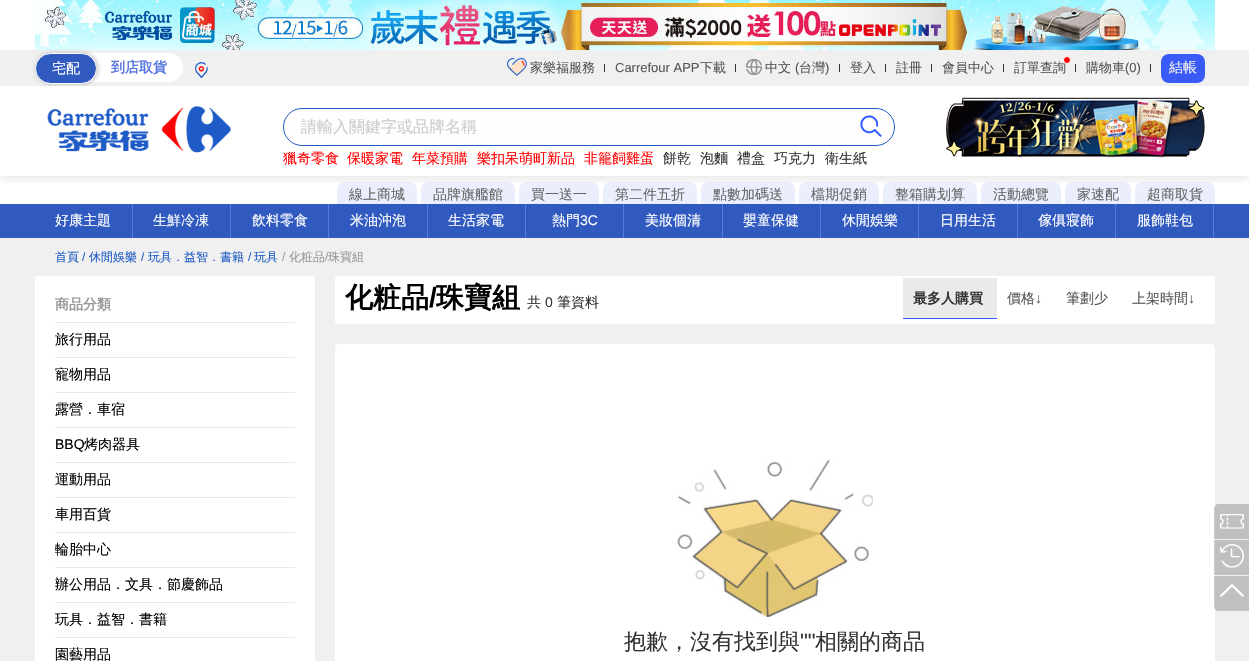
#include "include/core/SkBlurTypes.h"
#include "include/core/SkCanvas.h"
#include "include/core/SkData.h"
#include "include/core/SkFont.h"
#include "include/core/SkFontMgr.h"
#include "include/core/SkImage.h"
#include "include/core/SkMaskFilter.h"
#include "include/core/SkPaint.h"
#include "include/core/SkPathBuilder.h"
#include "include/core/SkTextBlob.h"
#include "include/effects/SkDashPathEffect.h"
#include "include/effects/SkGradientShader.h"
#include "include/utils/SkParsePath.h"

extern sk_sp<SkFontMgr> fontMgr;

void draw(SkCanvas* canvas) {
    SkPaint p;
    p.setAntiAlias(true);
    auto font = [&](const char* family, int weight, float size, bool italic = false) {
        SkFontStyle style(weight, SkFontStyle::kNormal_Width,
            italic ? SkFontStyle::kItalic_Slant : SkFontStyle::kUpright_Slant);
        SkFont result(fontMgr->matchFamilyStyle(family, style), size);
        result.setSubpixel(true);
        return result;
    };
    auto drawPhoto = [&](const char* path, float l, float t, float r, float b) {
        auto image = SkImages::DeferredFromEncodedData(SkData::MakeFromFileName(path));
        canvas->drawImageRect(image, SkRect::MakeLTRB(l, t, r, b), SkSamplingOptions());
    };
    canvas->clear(0xFFF0F0F0);
    p.setColor(0xFFC0C0C0);
    canvas->drawRect(SkRect::MakeLTRB(1215, 540, 1249, 575), p);
    p.setColor(0xFFFFFFFF);
    canvas->drawRect(SkRect::MakeLTRB(0, 0, 1249, 204), p);
    p.setColor(0xFFEBEEFD);
    canvas->drawPath(SkPathBuilder().moveTo(345, 182).lineTo(409, 182).cubicTo(413.5f, 182, 417, 185.5f, 417, 190).lineTo(417, 206).lineTo(337, 206).lineTo(337, 190).cubicTo(337, 185.5f, 340.5f, 182, 345, 182).close().detach(), p);
    canvas->drawPath(SkPathBuilder().moveTo(429, 182).lineTo(507, 182).cubicTo(511.5f, 182, 515, 185.5f, 515, 190).lineTo(515, 206).lineTo(421, 206).lineTo(421, 190).cubicTo(421, 185.5f, 424.5f, 182, 429, 182).close().detach(), p);
    canvas->drawPath(SkPathBuilder().moveTo(527, 182).lineTo(591, 182).cubicTo(595.5f, 182, 599, 185.5f, 599, 190).lineTo(599, 206).lineTo(519, 206).lineTo(519, 190).cubicTo(519, 185.5f, 522.5f, 182, 527, 182).close().detach(), p);
    canvas->drawPath(SkPathBuilder().moveTo(611, 182).lineTo(689, 182).cubicTo(693.5f, 182, 697, 185.5f, 697, 190).lineTo(697, 206).lineTo(603, 206).lineTo(603, 190).cubicTo(603, 185.5f, 606.5f, 182, 611, 182).close().detach(), p);
    canvas->drawPath(SkPathBuilder().moveTo(709, 182).lineTo(787, 182).cubicTo(791.5f, 182, 795, 185.5f, 795, 190).lineTo(795, 206).lineTo(701, 206).lineTo(701, 190).cubicTo(701, 185.5f, 704.5f, 182, 709, 182).close().detach(), p);
    canvas->drawPath(SkPathBuilder().moveTo(807, 182).lineTo(871, 182).cubicTo(875.5f, 182, 879, 185.5f, 879, 190).lineTo(879, 206).lineTo(799, 206).lineTo(799, 190).cubicTo(799, 185.5f, 802.5f, 182, 807, 182).close().detach(), p);
    canvas->drawPath(SkPathBuilder().moveTo(891, 182).lineTo(969, 182).cubicTo(973.5f, 182, 977, 185.5f, 977, 190).lineTo(977, 206).lineTo(883, 206).lineTo(883, 190).cubicTo(883, 185.5f, 886.5f, 182, 891, 182).close().detach(), p);
    canvas->drawPath(SkPathBuilder().moveTo(989, 182).lineTo(1053, 182).cubicTo(1057.5f, 182, 1061, 185.5f, 1061, 190).lineTo(1061, 206).lineTo(981, 206).lineTo(981, 190).cubicTo(981, 185.5f, 984.5f, 182, 989, 182).close().detach(), p);
    canvas->drawPath(SkPathBuilder().moveTo(1073, 182).lineTo(1123, 182).cubicTo(1127.5f, 182, 1131, 185.5f, 1131, 190).lineTo(1131, 206).lineTo(1065, 206).lineTo(1065, 190).cubicTo(1065, 185.5f, 1068.5f, 182, 1073, 182).close().detach(), p);
    canvas->drawPath(SkPathBuilder().moveTo(1143, 182).lineTo(1207, 182).cubicTo(1211.5f, 182, 1215, 185.5f, 1215, 190).lineTo(1215, 206).lineTo(1135, 206).lineTo(1135, 190).cubicTo(1135, 185.5f, 1138.5f, 182, 1143, 182).close().detach(), p);
    canvas->save();
    canvas->clipRect(SkRect::MakeLTRB(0, 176, 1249, 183));
    p.setColor(0x1A000000);
    p.setMaskFilter(SkMaskFilter::MakeBlur(kNormal_SkBlurStyle, 5));
    canvas->drawRect(SkRect::MakeLTRB(0, 3, 1249, 179), p);
    p.setMaskFilter(nullptr);
    canvas->restore();
    drawPhoto("media/1.png", 35, 0, 1215, 50);
    p.setColor(0xFFF0F0F0);
    canvas->drawRect(SkRect::MakeLTRB(0, 50, 1249, 86), p);
    p.setColor(0xFFFFFFFF);
    canvas->drawRoundRect(SkRect::MakeLTRB(35, 53, 183, 82), 14.5f, 14.5f, p);
    p.setColor(0x40000000);
    p.setMaskFilter(SkMaskFilter::MakeBlur(kNormal_SkBlurStyle, 2));
    canvas->drawRoundRect(SkRect::MakeLTRB(36, 53, 98, 84), 15.5f, 15.5f, p);
    p.setMaskFilter(nullptr);
    p.setColor(0xFF305ABF);
    canvas->drawRoundRect(SkRect::MakeLTRB(35.5f, 53.5f, 96.5f, 83.5f), 15, 15, p);
    p.setStyle(SkPaint::kStroke_Style);
    p.setStrokeWidth(1);
    p.setColor(0xFFFFFFFF);
    canvas->drawRoundRect(SkRect::MakeLTRB(35.5f, 53.5f, 96.5f, 83.5f), 15, 15, p);
    auto font1 = font("WenQuanYi Zen Hei", 500, 14);
    p.setStyle(SkPaint::kFill_Style);
    canvas->drawString("宅配", 52, 73, font1, p);
    auto font2 = font("WenQuanYi Zen Hei", 700, 14);
    p.setColor(0xFF5877E1);
    canvas->drawString("到店取貨", 111, 72, font2, p);
    drawPhoto("media/2.png", 195, 62, 208, 78);
    drawPhoto("media/3.png", 507, 58, 527, 76);
    auto font3 = font("WenQuanYi Zen Hei", 500, 13);
    p.setColor(0xFF555555);
    canvas->drawString("家樂福服務", 530, 72, font3, p);
    p.setColor(0xFF333333);
    canvas->drawRect(SkRect::MakeLTRB(604, 64, 605, 72), p);
    auto font4 = font("Liberation Sans", 400, 13);
    p.setColor(0xFF555555);
    canvas->drawString("Carrefour APP", 615, 72, font4, p);
    canvas->drawString("下載", 700, 72, font3, p);
    p.setColor(0xFF333333);
    canvas->drawRect(SkRect::MakeLTRB(735, 64, 736, 72), p);
    drawPhoto("media/4.png", 746, 59, 762, 75);
    p.setColor(0xFF555555);
    canvas->drawString("中文", 765, 72, font3, p);
    canvas->drawString("(", 795, 72, font4, p);
    canvas->drawString("台灣", 799, 72, font3, p);
    canvas->drawString(")", 825, 72, font4, p);
    p.setColor(0xFF333333);
    canvas->drawRect(SkRect::MakeLTRB(839, 64, 840, 72), p);
    p.setColor(0xFF555555);
    canvas->drawString("登入", 850, 72, font3, p);
    p.setColor(0xFF333333);
    canvas->drawRect(SkRect::MakeLTRB(885, 64, 886, 72), p);
    p.setColor(0xFF555555);
    canvas->drawString("註冊", 896, 72, font3, p);
    p.setColor(0xFF333333);
    canvas->drawRect(SkRect::MakeLTRB(931, 64, 932, 72), p);
    p.setColor(0xFF555555);
    canvas->drawString("會員中心", 942, 72, font3, p);
    p.setColor(0xFF333333);
    canvas->drawRect(SkRect::MakeLTRB(1003, 64, 1004, 72), p);
    p.setColor(0xFF555555);
    canvas->drawString("訂單查詢", 1014, 72, font3, p);
    p.setColor(0xFFFF0000);
    canvas->drawCircle(1067, 60, 3.5f, p);
    p.setStyle(SkPaint::kStroke_Style);
    p.setColor(0xFFFFFFFF);
    canvas->drawCircle(1067, 60, 3.5f, p);
    p.setStyle(SkPaint::kFill_Style);
    p.setColor(0xFF333333);
    canvas->drawRect(SkRect::MakeLTRB(1075, 64, 1076, 72), p);
    p.setColor(0xFF555555);
    canvas->drawString("購物車", 1086, 72, font3, p);
    canvas->drawString("(0)", 1125, 72, font4, p);
    p.setColor(0xFF333333);
    canvas->drawRect(SkRect::MakeLTRB(1150, 64, 1151, 72), p);
    p.setColor(0xFF395AF6);
    canvas->drawRoundRect(SkRect::MakeLTRB(1161, 54, 1205, 83), 8, 8, p);
    p.setColor(0xFFF0F0F0);
    canvas->drawString("結帳", 1169, 72, font1, p);
    p.setColor(0xFFFFFFFF);
    canvas->drawRect(SkRect::MakeLTRB(46, 86, 88, 87), p);
    drawPhoto("media/5.png", 47, 106, 231, 153);
    p.setColor(0xFFFFFEFC);
    canvas->drawRoundRect(SkRect::MakeLTRB(283.5f, 108.5f, 894.5f, 145.5f), 18.5f, 18.5f, p);
    p.setStyle(SkPaint::kStroke_Style);
    p.setColor(0xFF1E5BC6);
    canvas->drawRoundRect(SkRect::MakeLTRB(283.5f, 108.5f, 894.5f, 145.5f), 18.5f, 18.5f, p);
    auto font5 = font("WenQuanYi Zen Hei", 500, 16);
    p.setStyle(SkPaint::kFill_Style);
    p.setColor(0xFFCCCCCC);
    canvas->drawString("請輸入關鍵字或品牌名稱", 301, 132, font5, p);
    drawPhoto("media/6.png", 860, 115, 882, 137);
    p.setColor(0xFFFF0000);
    {
        const struct { const char* s; float x, y; } items[] = {
            {"獵奇零食", 283, 163},
            {"保暖家電", 347, 163},
            {"年菜預購", 412, 163},
            {"樂扣呆萌町新品", 477, 163},
            {"非籠飼雞蛋", 584, 163},
        };
        for (auto [s, x, y] : items) {
            canvas->drawString(s, x, y, font1, p);
        }
    }
    p.setColor(0xFF333333);
    {
        const struct { const char* s; float x, y; } items[] = {
            {"餅乾", 663, 163},
            {"泡麵", 700, 163},
            {"禮盒", 737, 163},
            {"巧克力", 774, 163},
            {"衛生紙", 825, 163},
        };
        for (auto [s, x, y] : items) {
            canvas->drawString(s, x, y, font1, p);
        }
    }
    drawPhoto("media/7.png", 946, 97, 1205, 159);
    p.setColor(0xFF666666);
    {
        const struct { const char* s; float x, y; } items[] = {
            {"線上商城", 349, 199},
            {"品牌旗艦館", 433, 199},
            {"買一送一", 531, 199},
            {"第二件五折", 615, 199},
            {"點數加碼送", 713, 199},
            {"檔期促銷", 811, 199},
            {"整箱購划算", 895, 199},
            {"活動總覽", 993, 199},
            {"家速配", 1077, 199},
            {"超商取貨", 1147, 199},
        };
        for (auto [s, x, y] : items) {
            canvas->drawString(s, x, y, font1, p);
        }
    }
    p.setColor(0xFF305ABF);
    canvas->drawRect(SkRect::MakeLTRB(0, 204, 1249, 238), p);
    p.setColor(0xFF5877E1);
    canvas->drawRect(SkRect::MakeLTRB(132, 204, 133, 238), p);
    p.setColor(0xFFFFFFFF);
    canvas->drawString("好康主題", 55, 225, font1, p);
    p.setColor(0xFF5877E1);
    canvas->drawRect(SkRect::MakeLTRB(230, 204, 231, 238), p);
    p.setColor(0xFFFFFFFF);
    canvas->drawString("生鮮冷凍", 153, 225, font1, p);
    p.setColor(0xFF5877E1);
    canvas->drawRect(SkRect::MakeLTRB(328, 204, 329, 238), p);
    p.setColor(0xFFFFFFFF);
    canvas->drawString("飲料零食", 252, 225, font1, p);
    p.setColor(0xFF5877E1);
    canvas->drawRect(SkRect::MakeLTRB(427, 204, 428, 238), p);
    p.setColor(0xFFFFFFFF);
    canvas->drawString("米油沖泡", 350, 225, font1, p);
    p.setColor(0xFF5877E1);
    canvas->drawRect(SkRect::MakeLTRB(525, 204, 526, 238), p);
    p.setColor(0xFFFFFFFF);
    canvas->drawString("生活家電", 448, 225, font1, p);
    p.setColor(0xFF5877E1);
    canvas->drawRect(SkRect::MakeLTRB(623, 204, 624, 238), p);
    p.setColor(0xFFFFFFFF);
    canvas->drawString("熱門", 552, 225, font1, p);
    auto font6 = font("Liberation Sans", 400, 14);
    canvas->drawString("3C", 580, 225, font6, p);
    p.setColor(0xFF5877E1);
    canvas->drawRect(SkRect::MakeLTRB(722, 204, 723, 238), p);
    p.setColor(0xFFFFFFFF);
    canvas->drawString("美妝個清", 645, 225, font1, p);
    p.setColor(0xFF5877E1);
    canvas->drawRect(SkRect::MakeLTRB(820, 204, 821, 238), p);
    p.setColor(0xFFFFFFFF);
    canvas->drawString("嬰童保健", 743, 225, font1, p);
    p.setColor(0xFF5877E1);
    canvas->drawRect(SkRect::MakeLTRB(918, 204, 919, 238), p);
    p.setColor(0xFFFFFFFF);
    canvas->drawString("休閒娛樂", 842, 225, font1, p);
    p.setColor(0xFF5877E1);
    canvas->drawRect(SkRect::MakeLTRB(1017, 204, 1018, 238), p);
    p.setColor(0xFFFFFFFF);
    canvas->drawString("日用生活", 940, 225, font1, p);
    p.setColor(0xFF5877E1);
    canvas->drawRect(SkRect::MakeLTRB(1115, 204, 1116, 238), p);
    p.setColor(0xFFFFFFFF);
    canvas->drawString("傢俱寢飾", 1038, 225, font1, p);
    p.setColor(0xFF5877E1);
    canvas->drawRect(SkRect::MakeLTRB(1213, 204, 1214, 238), p);
    p.setColor(0xFFFFFFFF);
    canvas->drawString("服飾鞋包", 1137, 225, font1, p);
    auto font7 = font("WenQuanYi Zen Hei", 500, 12);
    p.setColor(0xFF1E5BC6);
    canvas->drawString("首頁", 55, 261, font7, p);
    auto font8 = font("Liberation Sans", 400, 12);
    canvas->drawString("/", 82, 261, font8, p);
    canvas->drawString("休閒娛樂", 89, 261, font7, p);
    canvas->drawString("/", 141, 261, font8, p);
    canvas->drawString("玩具．益智．書籍", 148, 261, font7, p);
    canvas->drawString("/", 248, 261, font8, p);
    canvas->drawString("玩具", 254, 261, font7, p);
    p.setColor(0xFF999999);
    canvas->drawString("/", 282, 261, font8, p);
    canvas->drawString("化粧品", 289, 261, font7, p);
    canvas->drawString("/", 325, 261, font8, p);
    canvas->drawString("珠寶組", 328, 261, font7, p);
    p.setColor(0xFFFFFFFF);
    canvas->drawRoundRect(SkRect::MakeLTRB(35, 276, 315, 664), 3, 3, p);
    p.setColor(0xFF999999);
    canvas->drawString("商品分類", 55, 309, font2, p);
    p.setColor(0xFFEBEAE8);
    canvas->drawRect(SkRect::MakeLTRB(55, 322, 295, 323), p);
    p.setColor(0xFF000000);
    canvas->drawString("旅行用品", 55, 344, font1, p);
    p.setColor(0xFFEBEAE8);
    canvas->drawRect(SkRect::MakeLTRB(55, 357, 295, 358), p);
    p.setColor(0xFF000000);
    canvas->drawString("寵物用品", 55, 379, font1, p);
    p.setColor(0xFFEBEAE8);
    canvas->drawRect(SkRect::MakeLTRB(55, 392, 295, 393), p);
    p.setColor(0xFF000000);
    canvas->drawString("露營．車宿", 55, 414, font1, p);
    p.setColor(0xFFEBEAE8);
    canvas->drawRect(SkRect::MakeLTRB(55, 427, 295, 428), p);
    p.setColor(0xFF000000);
    canvas->drawString("BBQ", 55, 449, font6, p);
    canvas->drawString("烤肉器具", 84, 449, font1, p);
    p.setColor(0xFFEBEAE8);
    canvas->drawRect(SkRect::MakeLTRB(55, 462, 295, 463), p);
    p.setColor(0xFF000000);
    canvas->drawString("運動用品", 55, 484, font1, p);
    p.setColor(0xFFEBEAE8);
    canvas->drawRect(SkRect::MakeLTRB(55, 497, 295, 498), p);
    p.setColor(0xFF000000);
    canvas->drawString("車用百貨", 55, 519, font1, p);
    p.setColor(0xFFEBEAE8);
    canvas->drawRect(SkRect::MakeLTRB(55, 532, 295, 533), p);
    p.setColor(0xFF000000);
    canvas->drawString("輪胎中心", 55, 554, font1, p);
    p.setColor(0xFFEBEAE8);
    canvas->drawRect(SkRect::MakeLTRB(55, 567, 295, 568), p);
    p.setColor(0xFF000000);
    canvas->drawString("辦公用品．文具．節慶飾品", 55, 589, font1, p);
    p.setColor(0xFFEBEAE8);
    canvas->drawRect(SkRect::MakeLTRB(55, 602, 295, 603), p);
    p.setColor(0xFF000000);
    canvas->drawString("玩具．益智．書籍", 55, 624, font1, p);
    p.setColor(0xFFEBEAE8);
    canvas->drawRect(SkRect::MakeLTRB(55, 637, 295, 638), p);
    p.setColor(0xFF000000);
    canvas->drawString("園藝用品", 55, 659, font1, p);
    p.setColor(0xFFFFFFFF);
    canvas->drawRoundRect(SkRect::MakeLTRB(335, 276, 1215, 324), 3, 3, p);
    auto font9 = font("WenQuanYi Zen Hei", 700, 28);
    p.setColor(0xFF000000);
    canvas->drawString("化粧品", 345, 307, font9, p);
    auto font10 = font("Liberation Sans", 700, 28);
    canvas->drawString("/", 429, 307, font10, p);
    canvas->drawString("珠寶組", 436, 307, font9, p);
    p.setColor(0xFF333333);
    canvas->drawString("共", 527, 307, font1, p);
    canvas->drawString("0", 545, 307, font6, p);
    canvas->drawString("筆資料", 557, 307, font1, p);
    p.setColor(0xFFEBEAE8);
    canvas->drawRect(SkRect::MakeLTRB(903, 278, 997, 318), p);
    p.setColor(0xFF333333);
    canvas->drawString("最多人購買", 913, 303, font2, p);
    p.setColor(0xFF2E5BFF);
    canvas->drawRect(SkRect::MakeLTRB(903, 318, 997, 319), p);
    p.setColor(0xFF555555);
    canvas->drawString("價格", 1007, 303, font1, p);
    canvas->drawString("↓", 1035, 303, font6, p);
    canvas->drawString("筆劃少", 1066, 303, font1, p);
    canvas->drawString("上架時間", 1132, 303, font1, p);
    canvas->drawString("↓", 1188, 303, font6, p);
    p.setColor(0xFFFFFFFF);
    canvas->drawRoundRect(SkRect::MakeLTRB(335, 344, 1215, 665), 4, 4, p);
    p.setColor(0xFFCCCCCC);
    canvas->drawRect(SkRect::MakeLTRB(1214, 540, 1215, 575), p);
    drawPhoto("media/8.png", 677, 459, 873, 617);
    auto font11 = font("WenQuanYi Zen Hei", 500, 22);
    p.setColor(0xFF333333);
    canvas->drawString("抱歉，沒有找到與", 624, 649, font11, p);
    auto font12 = font("Liberation Sans", 400, 22);
    canvas->drawString("\"\"", 800, 649, font12, p);
    canvas->drawString("相關的商品", 815, 649, font11, p);
    p.setColor(0x33000000);
    canvas->drawPath(SkPathBuilder().moveTo(1219, 504).lineTo(1249, 504).lineTo(1249, 539).lineTo(1214, 539).lineTo(1214, 509).cubicTo(1214, 506, 1216, 504, 1219, 504).close().detach(), p);
    drawPhoto("media/9.png", 1220, 514, 1244, 529);
    drawPhoto("media/10.png", 1220, 544, 1244, 568);
    canvas->drawPath(SkPathBuilder().moveTo(1214, 576).lineTo(1249, 576).lineTo(1249, 611).lineTo(1219, 611).cubicTo(1216, 611, 1214, 609, 1214, 606).close().detach(), p);
    drawPhoto("media/11.png", 1220, 584, 1244, 597);
}
